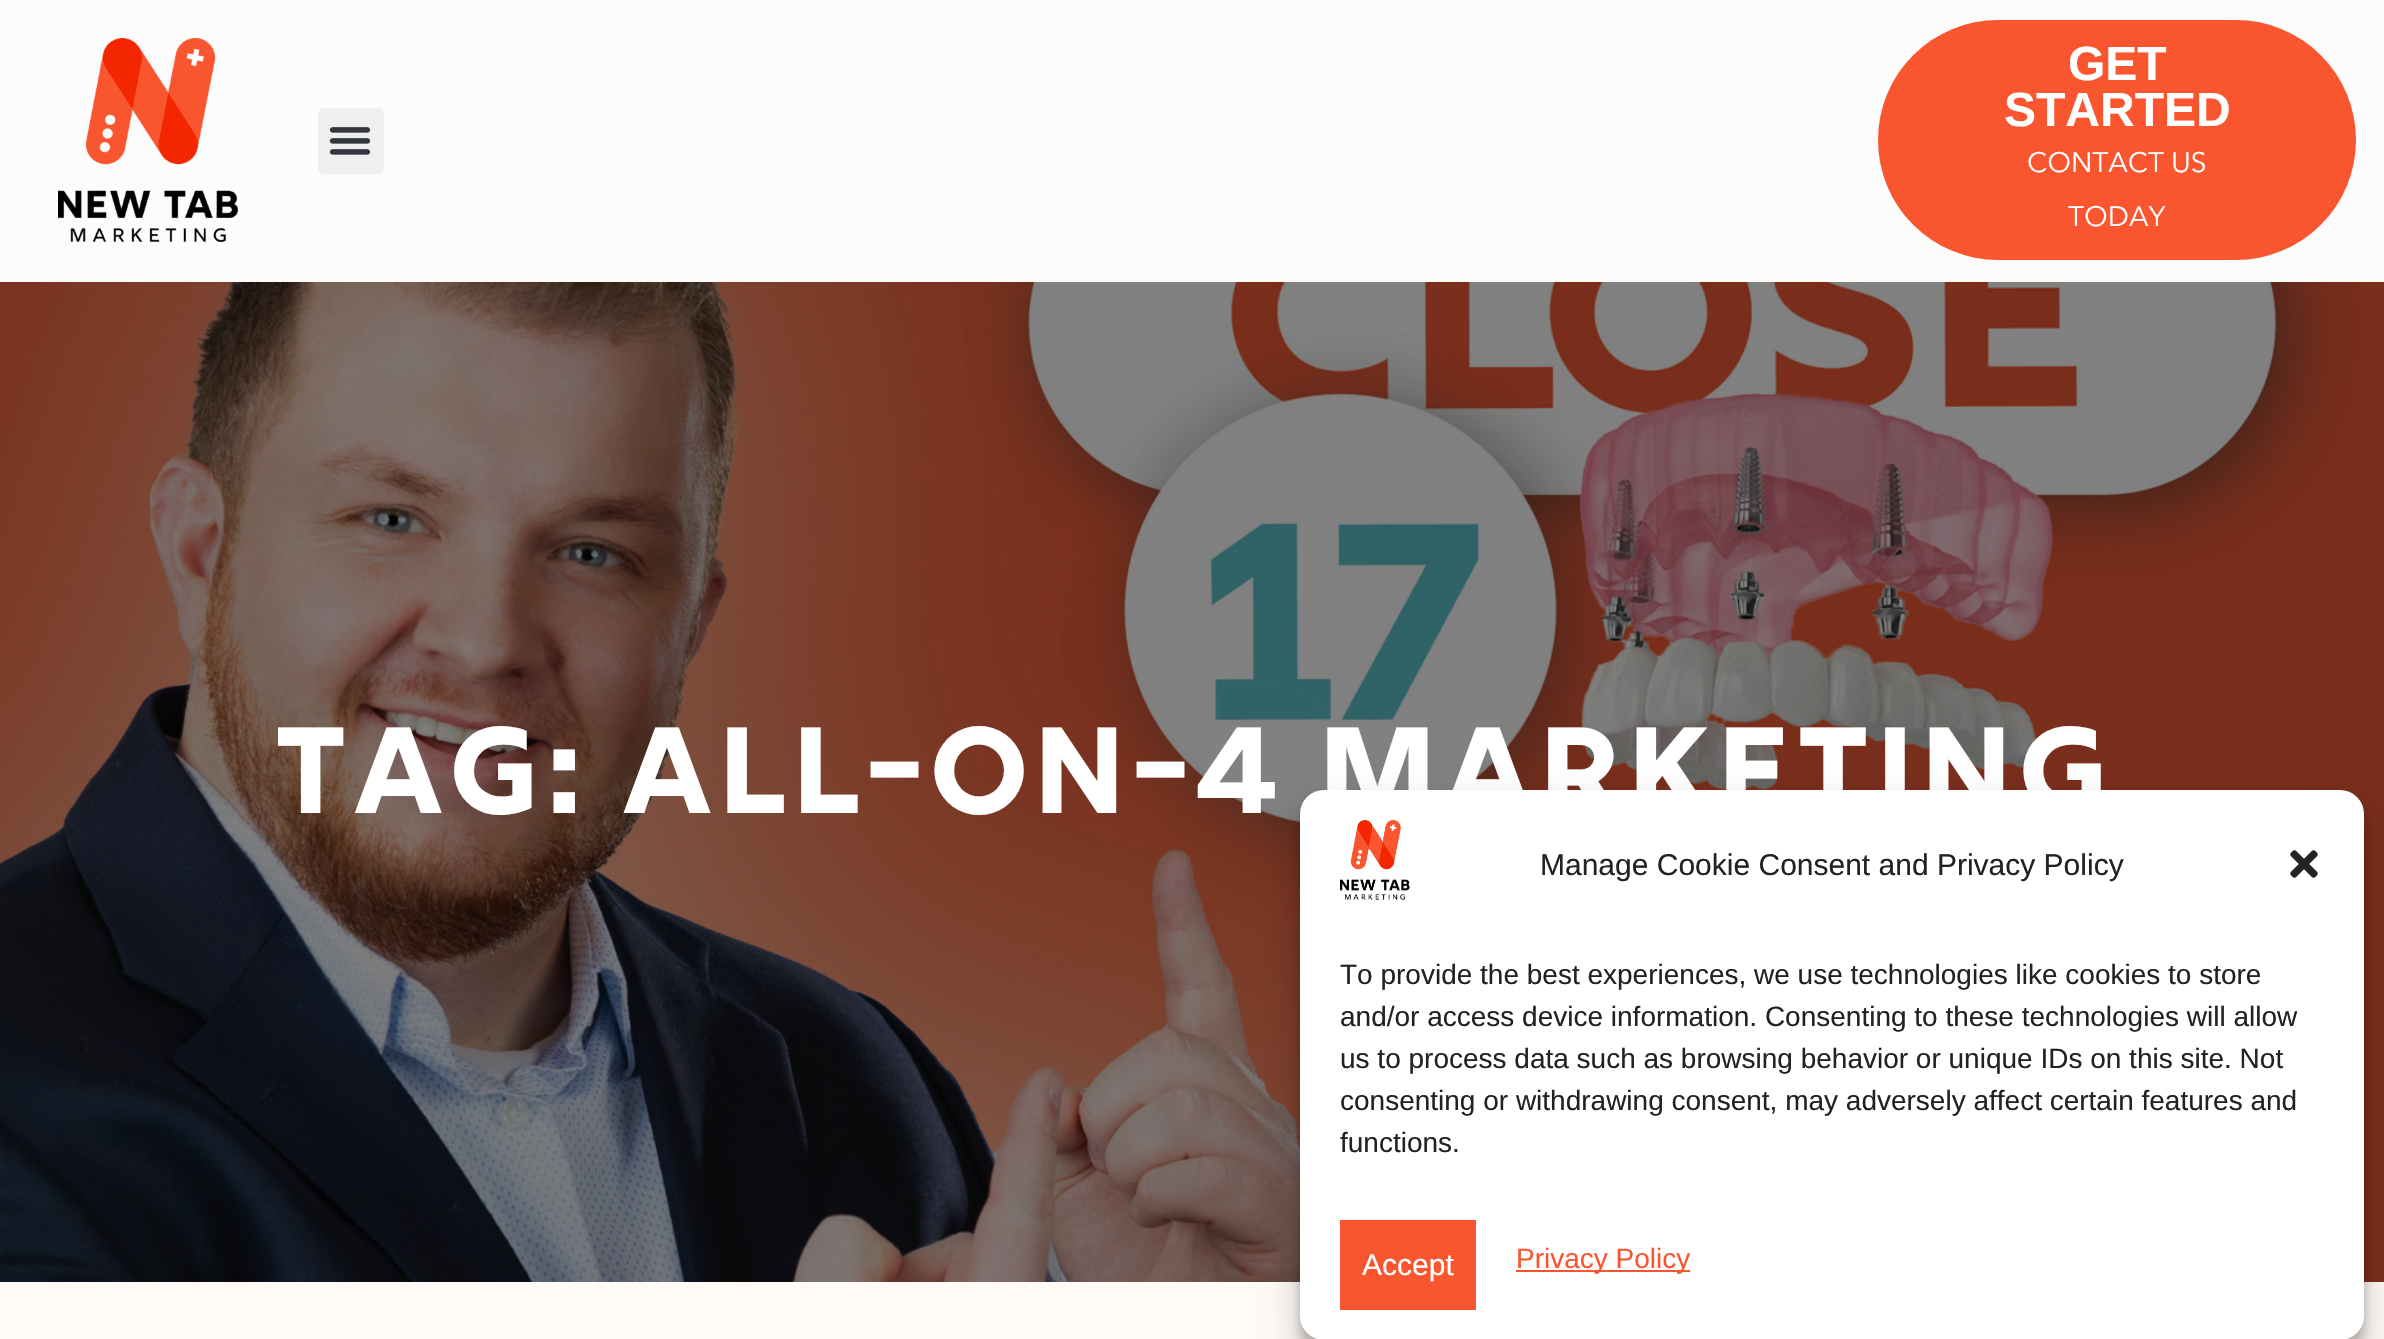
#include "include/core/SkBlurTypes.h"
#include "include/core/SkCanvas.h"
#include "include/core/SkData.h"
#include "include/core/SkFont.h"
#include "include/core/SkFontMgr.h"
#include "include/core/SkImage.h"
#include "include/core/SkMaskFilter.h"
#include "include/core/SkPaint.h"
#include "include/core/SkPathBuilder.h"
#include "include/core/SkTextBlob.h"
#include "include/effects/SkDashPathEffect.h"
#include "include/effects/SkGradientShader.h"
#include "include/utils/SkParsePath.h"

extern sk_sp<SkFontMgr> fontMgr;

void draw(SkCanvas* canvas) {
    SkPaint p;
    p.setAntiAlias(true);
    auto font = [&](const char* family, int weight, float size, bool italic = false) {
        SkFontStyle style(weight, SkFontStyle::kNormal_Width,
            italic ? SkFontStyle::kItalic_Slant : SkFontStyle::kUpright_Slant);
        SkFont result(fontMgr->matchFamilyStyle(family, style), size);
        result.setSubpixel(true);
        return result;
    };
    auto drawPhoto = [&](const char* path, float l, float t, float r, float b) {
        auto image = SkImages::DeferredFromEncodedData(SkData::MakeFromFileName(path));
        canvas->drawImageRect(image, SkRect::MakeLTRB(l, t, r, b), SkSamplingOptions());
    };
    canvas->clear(0xFFFFFAF5);
    p.setColor(0xFFFCFCFC);
    canvas->drawRect(SkRect::MakeLTRB(0, 0, 2384, 280), p);
    drawPhoto("media/1.png", 58, 38, 238, 242);
    p.setColor(0xFFEFEFEF);
    canvas->drawRoundRect(SkRect::MakeLTRB(318, 108, 384, 174), 6, 6, p);
    drawPhoto("media/2.png", 329, 127, 371, 155);
    p.setColor(0xFFF95630);
    canvas->drawRoundRect(SkRect::MakeLTRB(1878, 20, 2356, 260), 120, 120, p);
    auto font1 = font("Liberation Sans", 700, 48);
    p.setColor(0xFFFFFFFF);
    canvas->drawString("GET", 2068, 80, font1, p);
    canvas->drawString("STARTED", 2004, 126, font1, p);
    auto font2 = font("Avenir Next", 400, 28);
    canvas->drawString("CONTACT US", 2027, 172, font2, p);
    canvas->drawString("TODAY", 2068, 226, font2, p);
    drawPhoto("media/3.png", 0, 282, 2384, 1282);
    auto font3 = font("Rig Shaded", 700, 122);
    canvas->drawString("TAG: ALL-ON-4 MARKETING", 271, 813, font3, p);
    p.setColor(0x3B000000);
    p.setMaskFilter(SkMaskFilter::MakeBlur(kNormal_SkBlurStyle, 6));
    canvas->drawRoundRect(SkRect::MakeLTRB(1300, 802, 2364, 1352), 24, 24, p);
    p.setMaskFilter(nullptr);
    p.setColor(0x30000000);
    p.setMaskFilter(SkMaskFilter::MakeBlur(kNormal_SkBlurStyle, 20));
    canvas->drawRoundRect(SkRect::MakeLTRB(1300, 810, 2364, 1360), 24, 24, p);
    p.setMaskFilter(nullptr);
    p.setColor(0xFFFFFFFF);
    canvas->drawRoundRect(SkRect::MakeLTRB(1300, 790, 2364, 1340), 24, 24, p);
    drawPhoto("media/4.png", 1340, 820, 1410, 900);
    auto font4 = font("Liberation Sans", 400, 30);
    p.setColor(0xFF222222);
    canvas->drawString("Manage Cookie Consent and Privacy Policy", 1540, 875, font4, p);
    drawPhoto("media/5.png", 2290, 850, 2318, 878);
    auto font5 = font("Liberation Sans", 400, 28);
    {
        const struct { const char* s; float x, y; } items[] = {
            {"To provide the best experiences, we use technologies like cookies to store", 1340, 984},
            {"and/or access device information. Consenting to these technologies will allow", 1340, 1026},
            {"us to process data such as browsing behavior or unique IDs on this site. Not", 1340, 1068},
            {"consenting or withdrawing consent, may adversely affect certain features and", 1340, 1110},
            {"functions.", 1340, 1152},
        };
        for (auto [s, x, y] : items) {
            canvas->drawString(s, x, y, font5, p);
        }
    }
    p.setColor(0xFFF95630);
    canvas->drawRect(SkRect::MakeLTRB(1340, 1220, 1476, 1310), p);
    p.setColor(0xFFFFFFFF);
    canvas->drawString("Accept", 1362, 1275, font4, p);
    p.setColor(0xFFF95630);
    canvas->drawRect(SkRect::MakeLTRB(1516, 1270, 1690, 1272), p);
    canvas->drawString("Privacy Policy", 1516, 1268, font5, p);
}
